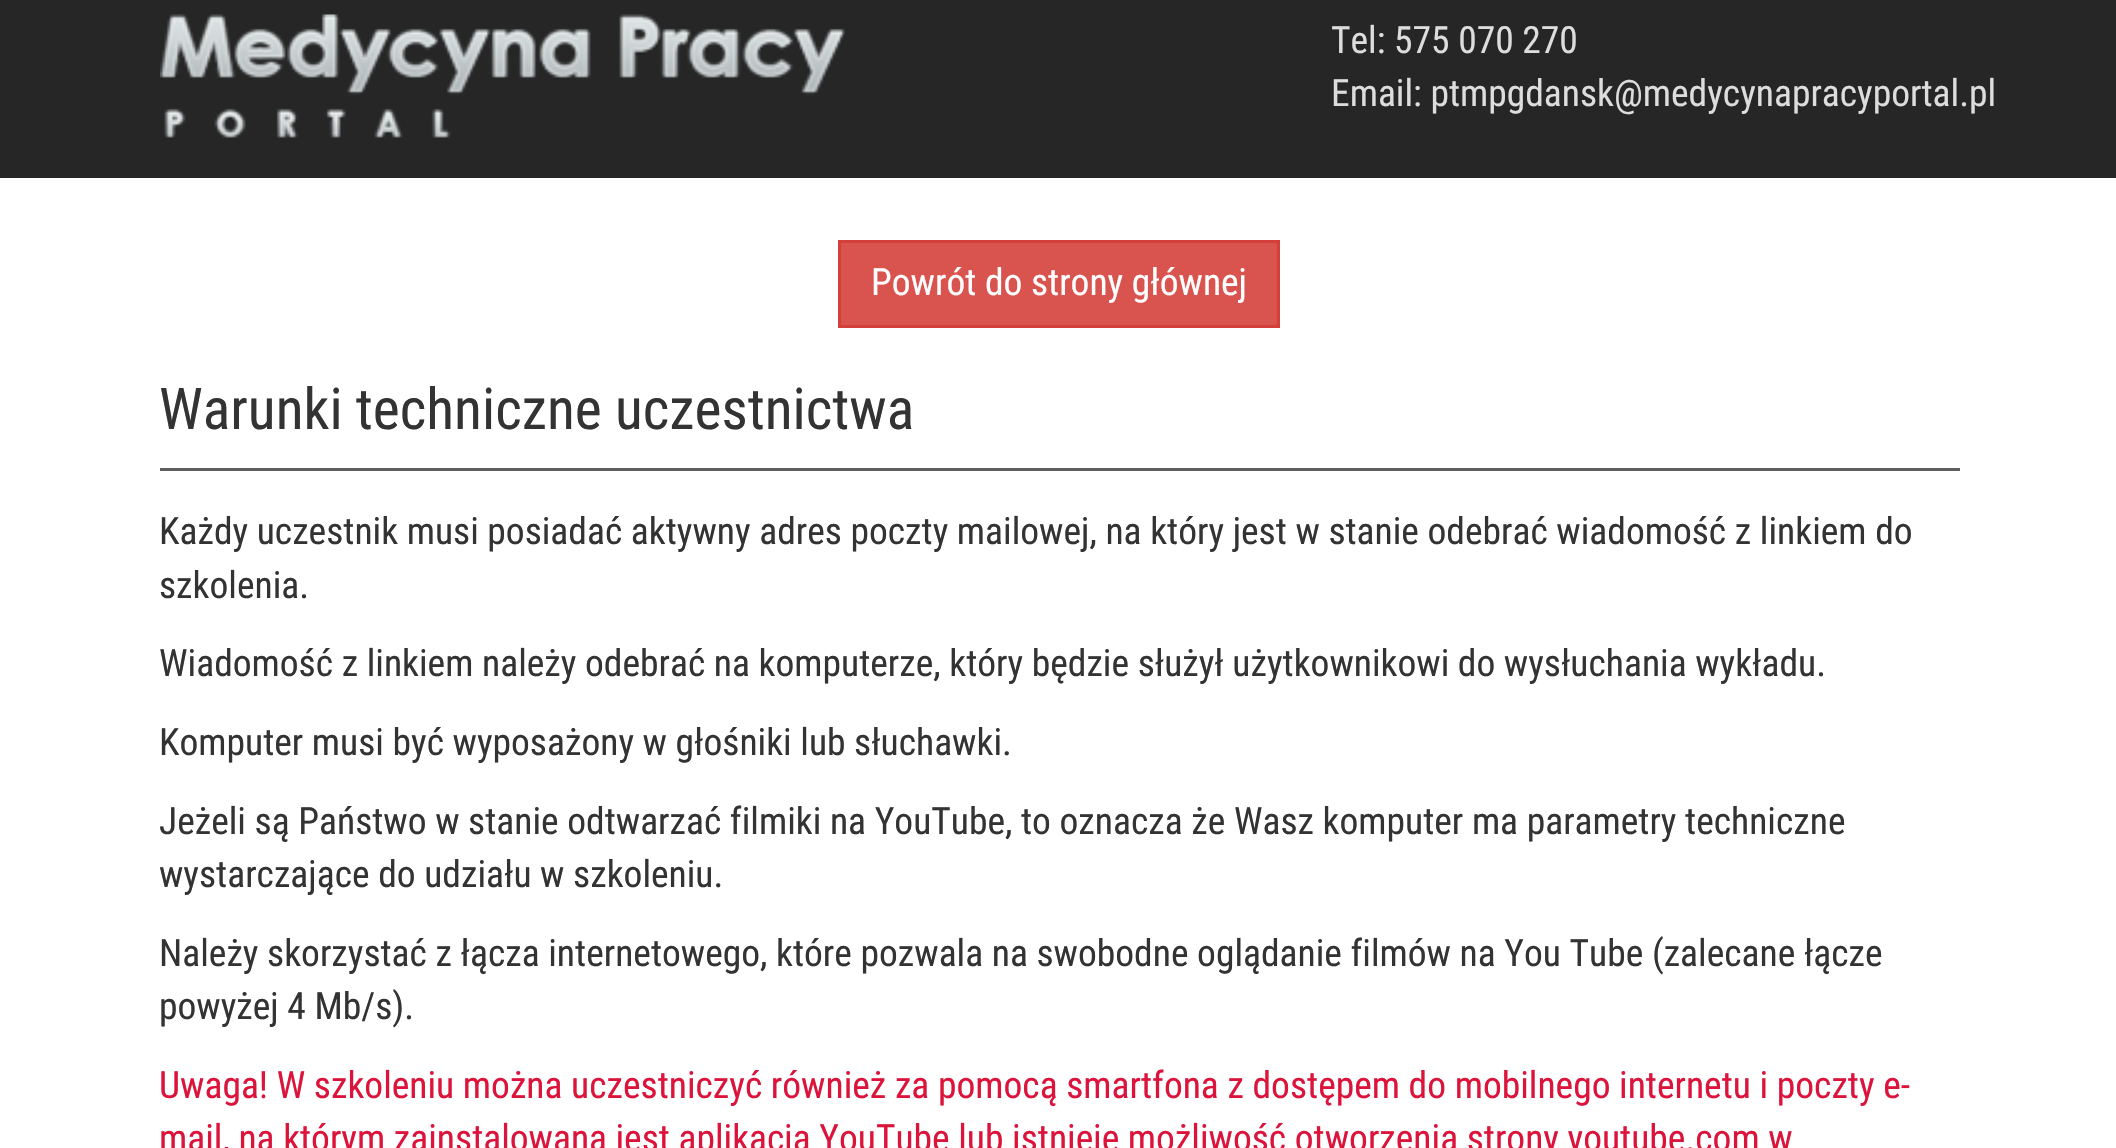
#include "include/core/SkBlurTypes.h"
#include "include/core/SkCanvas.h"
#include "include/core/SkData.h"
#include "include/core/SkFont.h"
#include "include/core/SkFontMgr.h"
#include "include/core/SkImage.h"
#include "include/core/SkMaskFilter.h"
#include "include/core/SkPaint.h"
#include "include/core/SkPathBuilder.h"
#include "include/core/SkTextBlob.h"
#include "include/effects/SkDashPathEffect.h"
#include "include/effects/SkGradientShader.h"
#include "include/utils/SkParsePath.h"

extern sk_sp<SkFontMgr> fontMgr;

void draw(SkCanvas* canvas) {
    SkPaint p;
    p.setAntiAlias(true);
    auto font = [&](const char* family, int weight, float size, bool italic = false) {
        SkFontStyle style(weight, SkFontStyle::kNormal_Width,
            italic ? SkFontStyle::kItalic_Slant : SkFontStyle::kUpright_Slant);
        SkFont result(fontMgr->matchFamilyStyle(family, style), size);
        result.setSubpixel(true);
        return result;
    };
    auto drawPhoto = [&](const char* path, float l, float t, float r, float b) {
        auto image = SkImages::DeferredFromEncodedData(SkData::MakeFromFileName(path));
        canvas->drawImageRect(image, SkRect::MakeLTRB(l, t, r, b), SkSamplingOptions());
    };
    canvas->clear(0xFFFFFFFF);
    p.setColor(0xFF262626);
    canvas->drawRect(SkRect::MakeLTRB(0, 0, 2116, 178), p);
    drawPhoto("media/1.png", 160, 14, 845, 138);
    auto font1 = font("Roboto Condensed", 400, 37.5f);
    p.setColor(0xFFDDDDDD);
    canvas->drawString("Tel: 575 070 270", 1331, 53, font1, p);
    canvas->drawString("Email: ptmpgdansk@medycynapracyportal.pl", 1331, 106, font1, p);
    p.setColor(0xFFD9534F);
    canvas->drawRect(SkRect::MakeLTRB(839.5f, 241.5f, 1278.5f, 326.5f), p);
    p.setStyle(SkPaint::kStroke_Style);
    p.setStrokeWidth(3);
    p.setColor(0xFFD43F3A);
    canvas->drawRect(SkRect::MakeLTRB(839.5f, 241.5f, 1278.5f, 326.5f), p);
    p.setStyle(SkPaint::kFill_Style);
    p.setColor(0xFFFFFFFF);
    canvas->drawString("Powrót do strony głównej", 871, 295, font1, p);
    auto font2 = font("Roboto Condensed", 400, 57.5f);
    p.setColor(0xFF333333);
    canvas->drawString("Warunki techniczne uczestnictwa", 159, 429, font2, p);
    p.setColor(0xFF5E5E5E);
    canvas->drawRect(SkRect::MakeLTRB(160, 468, 1960, 471), p);
    p.setColor(0xFF333333);
    {
        const struct { const char* s; float x, y; } items[] = {
            {"Każdy uczestnik musi posiadać aktywny adres poczty mailowej, na który jest w stanie odebrać wiadomość z linkiem do", 159, 544},
            {"szkolenia.", 159, 598},
            {"Wiadomość z linkiem należy odebrać na komputerze, który będzie służył użytkownikowi do wysłuchania wykładu.", 159, 676},
            {"Komputer musi być wyposażony w głośniki lub słuchawki.", 159, 755},
            {"Jeżeli są Państwo w stanie odtwarzać filmiki na YouTube, to oznacza że Wasz komputer ma parametry techniczne", 159, 834},
            {"wystarczające do udziału w szkoleniu.", 159, 887},
            {"Należy skorzystać z łącza internetowego, które pozwala na swobodne oglądanie filmów na You Tube (zalecane łącze", 159, 966},
            {"powyżej 4 Mb/s).", 159, 1019},
        };
        for (auto [s, x, y] : items) {
            canvas->drawString(s, x, y, font1, p);
        }
    }
    p.setColor(0xFFDC143C);
    canvas->drawString("Uwaga! W szkoleniu można uczestniczyć również za pomocą smartfona z dostępem do mobilnego internetu i poczty e-", 159, 1098, font1, p);
    canvas->drawString("mail, na którym zainstalowana jest aplikacja YouTube lub istnieje możliwość otworzenia strony youtube.com w", 159, 1151, font1, p);
}
